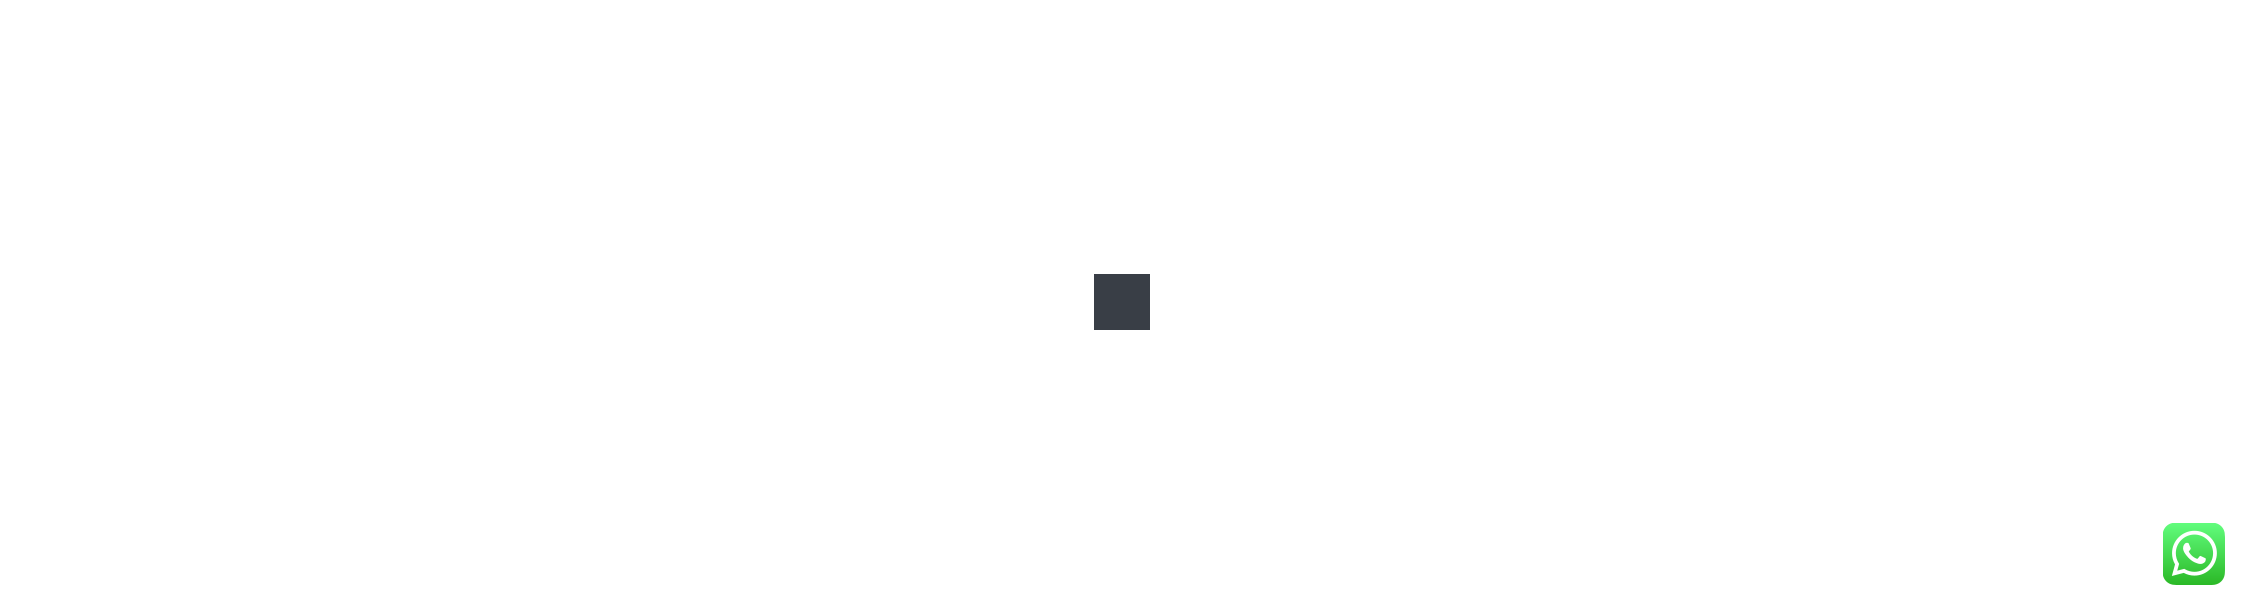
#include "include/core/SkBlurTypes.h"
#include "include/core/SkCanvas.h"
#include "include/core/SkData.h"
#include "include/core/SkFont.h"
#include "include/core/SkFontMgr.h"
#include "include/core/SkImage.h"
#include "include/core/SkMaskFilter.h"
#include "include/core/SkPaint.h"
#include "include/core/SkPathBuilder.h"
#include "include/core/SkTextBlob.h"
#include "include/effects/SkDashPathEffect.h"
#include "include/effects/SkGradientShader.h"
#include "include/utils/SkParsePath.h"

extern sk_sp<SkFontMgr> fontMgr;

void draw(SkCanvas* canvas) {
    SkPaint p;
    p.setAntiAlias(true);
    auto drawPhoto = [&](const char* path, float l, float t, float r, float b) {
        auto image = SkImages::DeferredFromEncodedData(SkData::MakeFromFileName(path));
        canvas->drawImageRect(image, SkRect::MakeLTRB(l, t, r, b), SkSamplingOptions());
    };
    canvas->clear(0xFFFFFFFF);
    p.setColor(0xFF393E46);
    canvas->drawRect(SkRect::MakeLTRB(1094, 274, 1150, 330), p);
    drawPhoto("media/1.png", 2163, 523, 2225, 585);
}
